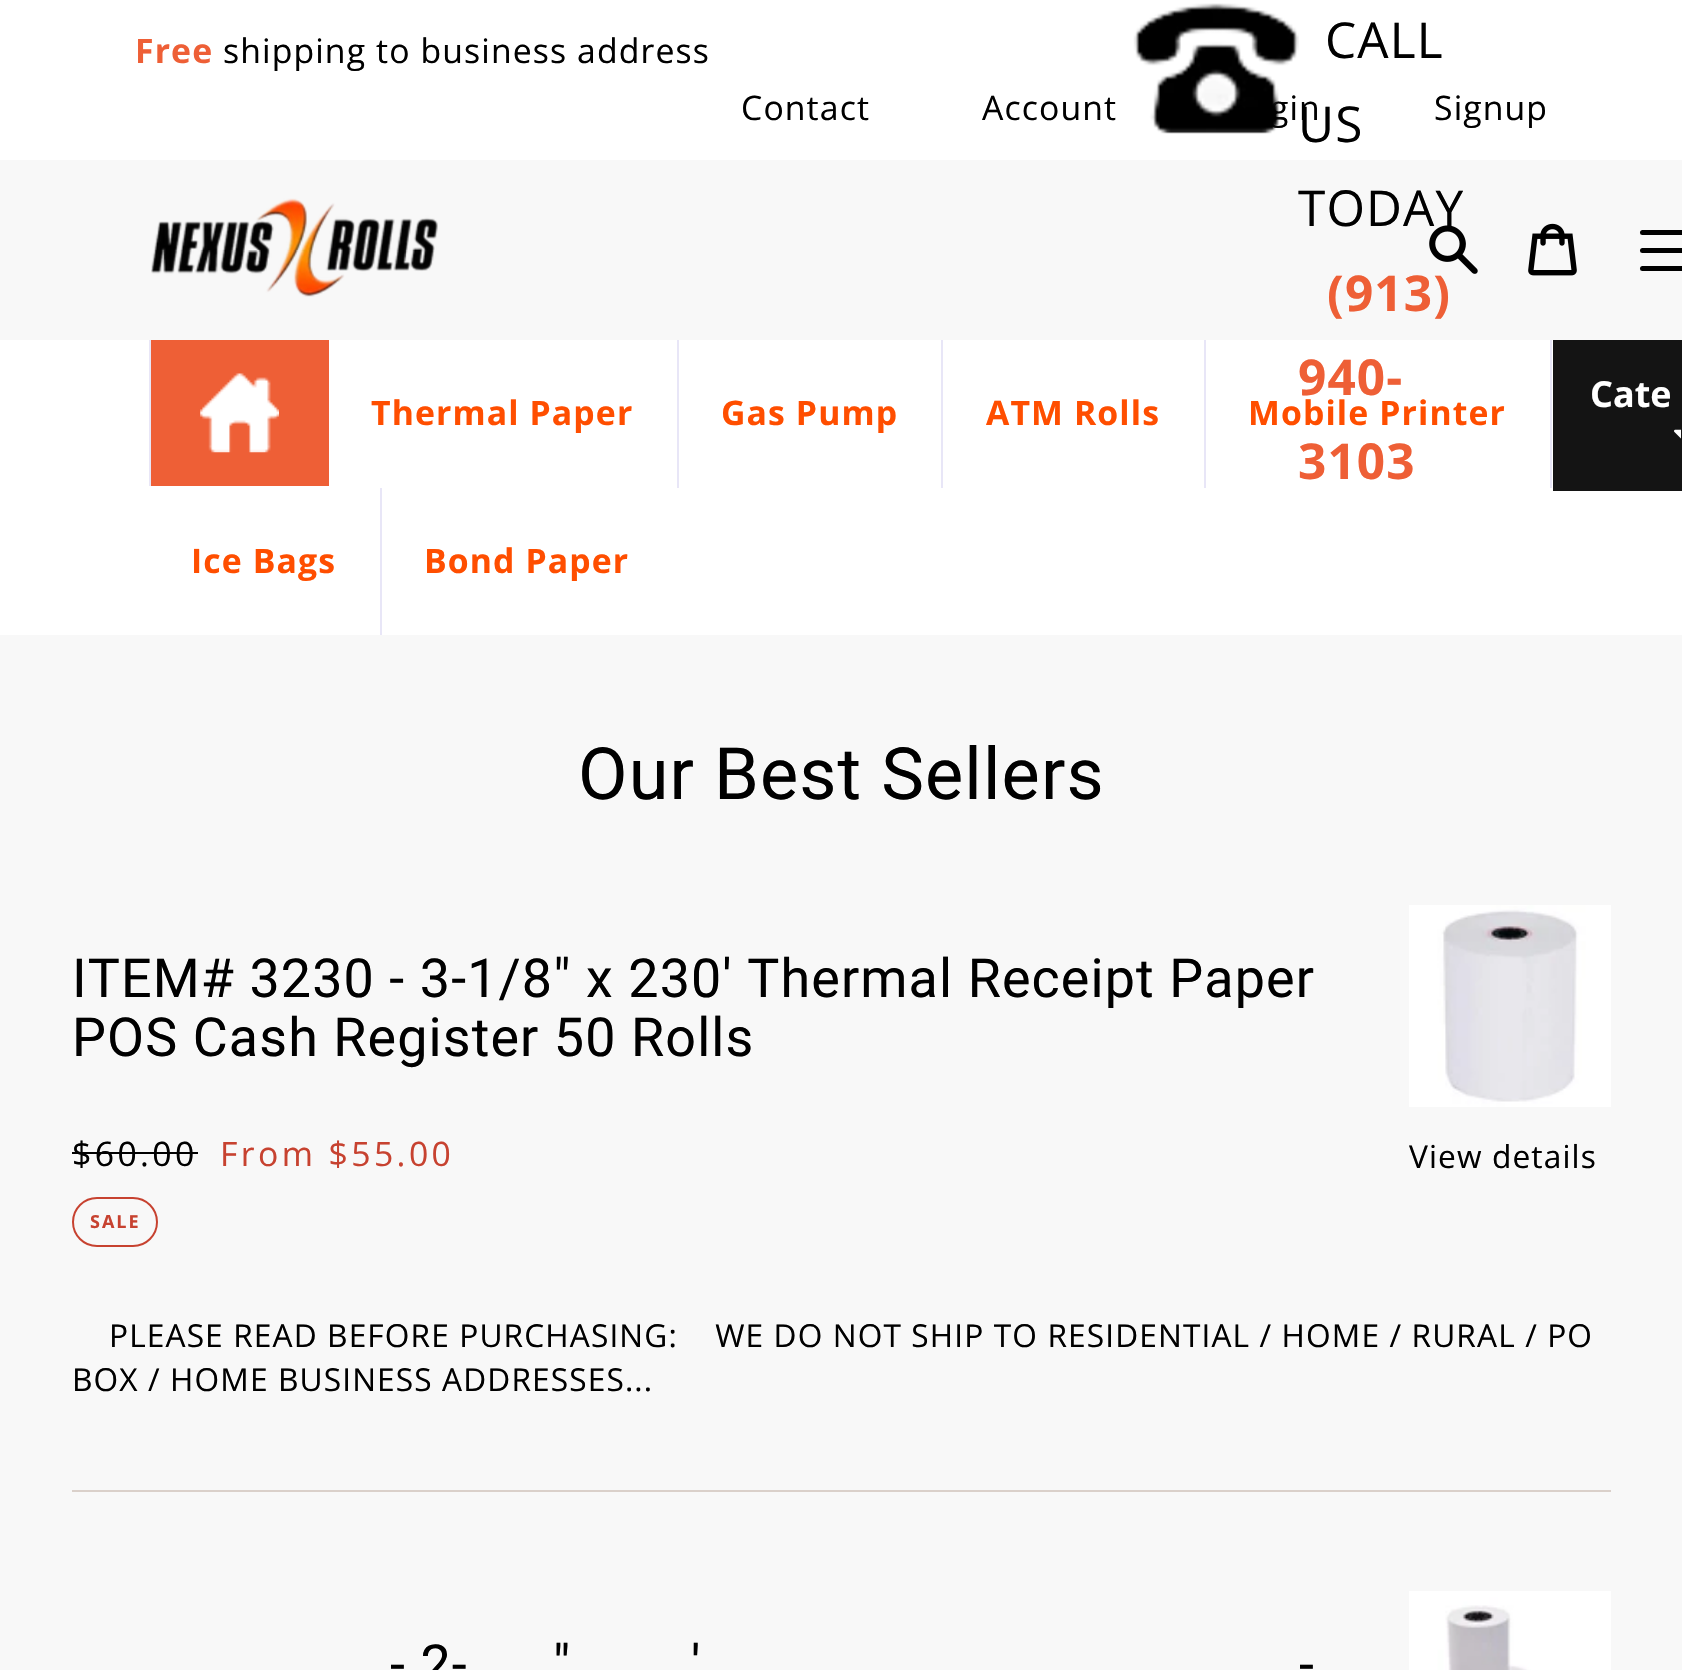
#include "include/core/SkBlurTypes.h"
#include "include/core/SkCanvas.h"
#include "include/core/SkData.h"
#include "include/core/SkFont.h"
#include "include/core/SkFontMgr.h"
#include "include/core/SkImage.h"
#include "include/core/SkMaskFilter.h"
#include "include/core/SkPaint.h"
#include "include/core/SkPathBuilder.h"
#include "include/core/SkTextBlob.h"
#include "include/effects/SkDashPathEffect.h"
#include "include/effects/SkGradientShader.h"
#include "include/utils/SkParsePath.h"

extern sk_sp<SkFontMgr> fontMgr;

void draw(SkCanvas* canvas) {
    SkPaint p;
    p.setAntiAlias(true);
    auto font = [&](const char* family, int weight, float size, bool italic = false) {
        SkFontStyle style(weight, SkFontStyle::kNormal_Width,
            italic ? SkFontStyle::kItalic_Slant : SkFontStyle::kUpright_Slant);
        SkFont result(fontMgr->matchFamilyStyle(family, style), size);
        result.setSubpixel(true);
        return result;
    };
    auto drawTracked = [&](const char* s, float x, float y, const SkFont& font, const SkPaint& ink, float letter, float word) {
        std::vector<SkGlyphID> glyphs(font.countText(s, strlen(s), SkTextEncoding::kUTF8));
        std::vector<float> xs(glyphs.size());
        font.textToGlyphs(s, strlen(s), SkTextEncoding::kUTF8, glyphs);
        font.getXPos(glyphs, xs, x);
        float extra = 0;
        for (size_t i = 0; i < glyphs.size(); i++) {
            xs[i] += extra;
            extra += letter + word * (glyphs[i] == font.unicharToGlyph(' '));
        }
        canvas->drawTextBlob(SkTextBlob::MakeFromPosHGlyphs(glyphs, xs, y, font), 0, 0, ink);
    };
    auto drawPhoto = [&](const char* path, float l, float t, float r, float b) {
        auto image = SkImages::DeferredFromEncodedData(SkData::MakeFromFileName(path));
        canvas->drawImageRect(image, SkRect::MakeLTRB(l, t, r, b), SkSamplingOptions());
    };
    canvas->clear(0xFFF8F8F8);
    drawPhoto("media/1.png", 151, 198, 438, 297);
    p.setColor(0xFFFFFFFF);
    canvas->drawRect(SkRect::MakeLTRB(0, 0, 1682, 160), p);
    auto font1 = font("Open Sans", 400, 33.75f);
    p.setColor(0xFF000000);
    drawTracked("gin", 1270, 120, font1, p, 1.12f, 0);
    drawPhoto("media/2.png", 1133, 3, 1299, 134);
    auto font2 = font("Open Sans", 400, 49.5f);
    {
        const struct { const char* s; float x, y; } items[] = {
            {"CALL", 1325, 58},
            {"US", 1298, 142},
            {"TODAY", 1298, 226},
        };
        for (auto [s, x, y] : items) {
            drawTracked(s, x, y, font2, p, 1.12f, 0);
        }
    }
    auto font3 = font("Open Sans", 700, 49.5f);
    p.setColor(0xFFEE5F36);
    drawTracked("(913)", 1327, 311, font3, p, 1.12f, 0);
    p.setColor(0xFFFFFFFF);
    canvas->drawRect(SkRect::MakeLTRB(0, 340, 1682, 635), p);
    p.setColor(0xFFEE5F36);
    drawTracked("940-", 1298, 395, font3, p, 1.12f, 0);
    drawTracked("3103", 1298, 479, font3, p, 1.12f, 0);
    drawPhoto("media/3.png", 1429, 225, 1478, 274);
    drawPhoto("media/4.png", 1528, 223, 1577, 276);
    p.setColor(0xFF000000);
    canvas->drawRoundRect(SkRect::MakeLTRB(1640, 248, 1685, 253), 2.5f, 2.5f, p);
    canvas->drawRoundRect(SkRect::MakeLTRB(1640, 230, 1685, 235), 2.5f, 2.5f, p);
    canvas->drawRoundRect(SkRect::MakeLTRB(1640, 266, 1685, 271), 2.5f, 2.5f, p);
    p.setColor(0xFFEE5F36);
    canvas->drawRect(SkRect::MakeLTRB(151, 340, 329, 486), p);
    p.setColor(0xFFE8E6F7);
    canvas->drawRect(SkRect::MakeLTRB(149, 340, 151, 486), p);
    drawPhoto("media/5.png", 200, 373, 279, 453);
    p.setColor(0xFF141414);
    canvas->drawRect(SkRect::MakeLTRB(1553, 340, 1682, 491), p);
    auto font4 = font("Open Sans", 700, 36);
    p.setColor(0xFFFFFFFF);
    canvas->drawString("Cate", 1590, 407, font4, p);
    drawPhoto("media/6.png", 1674, 429, 1681, 439);
    p.setColor(0xFFE8E6F7);
    canvas->drawRect(SkRect::MakeLTRB(677, 340, 679, 488), p);
    auto font5 = font("Open Sans", 700, 33.75f);
    p.setColor(0xFFFF4E00);
    drawTracked("Thermal Paper", 371, 425, font5, p, 1.12f, 0);
    p.setColor(0xFFE8E6F7);
    canvas->drawRect(SkRect::MakeLTRB(941, 340, 943, 488), p);
    p.setColor(0xFFFF4E00);
    drawTracked("Gas Pump", 721, 425, font5, p, 1.12f, 0);
    p.setColor(0xFFE8E6F7);
    canvas->drawRect(SkRect::MakeLTRB(1204, 340, 1206, 488), p);
    p.setColor(0xFFFF4E00);
    drawTracked("ATM Rolls", 986, 425, font5, p, 1.12f, 0);
    p.setColor(0xFFE8E6F7);
    canvas->drawRect(SkRect::MakeLTRB(1550, 340, 1552, 488), p);
    p.setColor(0xFFFF4E00);
    drawTracked("Mobile Printer", 1248, 425, font5, p, 1.12f, 0);
    p.setColor(0xFFE8E6F7);
    canvas->drawRect(SkRect::MakeLTRB(380, 488, 382, 635), p);
    p.setColor(0xFFFF4E00);
    drawTracked("Ice Bags", 191, 573, font5, p, 1.12f, 0);
    drawTracked("Bond Paper", 424, 573, font5, p, 1.12f, 0);
    p.setColor(0xFFEE5F36);
    drawTracked("Free", 135, 63, font5, p, 1.12f, 0);
    p.setColor(0xFF000000);
    {
        const struct { const char* s; float x, y; } items[] = {
            {"shipping to business address", 223, 63},
            {"Contact", 741, 120},
            {"Account", 982, 120},
            {"Signup", 1434, 120},
        };
        for (auto [s, x, y] : items) {
            drawTracked(s, x, y, font1, p, 1.12f, 0);
        }
    }
    auto font6 = font("Roboto", 400, 72);
    drawTracked("Our Best Sellers", 578, 799, font6, p, 1.12f, 0);
    auto font7 = font("Roboto", 400, 53.8f);
    drawTracked("ITEM# 3230 - 3-1/8\" x 230' Thermal Receipt Paper", 72, 997, font7, p, 1.12f, 0);
    drawTracked("POS Cash Register 50 Rolls", 72, 1056, font7, p, 1.12f, 0);
    drawPhoto("media/7.png", 1409, 905, 1611, 1107);
    drawTracked("$60.00", 72, 1166, font1, p, 3.4f, 0);
    canvas->drawRect(SkRect::MakeLTRB(72, 1152, 198, 1154), p);
    p.setColor(0xFFC74230);
    drawTracked("From $55.00", 220, 1166, font1, p, 3.4f, 0);
    p.setStyle(SkPaint::kStroke_Style);
    p.setStrokeWidth(2);
    canvas->drawRoundRect(SkRect::MakeLTRB(73, 1198, 157, 1246), 24, 24, p);
    auto font8 = font("Open Sans", 700, 18);
    p.setStyle(SkPaint::kFill_Style);
    drawTracked("SALE", 90, 1228, font8, p, 2, 0);
    auto font9 = font("Open Sans", 400, 31.65f);
    p.setColor(0xFF000000);
    {
        const struct { const char* s; float x, y; } items[] = {
            {"View details", 1409, 1168},
            {"PLEASE READ BEFORE PURCHASING:    WE DO NOT SHIP TO RESIDENTIAL / HOME / RURAL / PO", 109, 1347},
            {"BOX / HOME BUSINESS ADDRESSES...", 72, 1391},
        };
        for (auto [s, x, y] : items) {
            drawTracked(s, x, y, font9, p, 1.12f, 0);
        }
    }
    p.setColor(0xFFDAD0CA);
    canvas->drawRect(SkRect::MakeLTRB(72, 1490, 1611, 1492), p);
    p.setColor(0xFF000000);
    {
        const struct { const char* s; float x, y; } items[] = {
            {"- 2-", 390, 1683},
            {"\"", 553, 1683},
            {"'", 691, 1683},
            {"-", 1299, 1683},
        };
        for (auto [s, x, y] : items) {
            drawTracked(s, x, y, font7, p, 1.12f, 0);
        }
    }
    drawPhoto("media/8.png", 1409, 1591, 1611, 1670);
}
